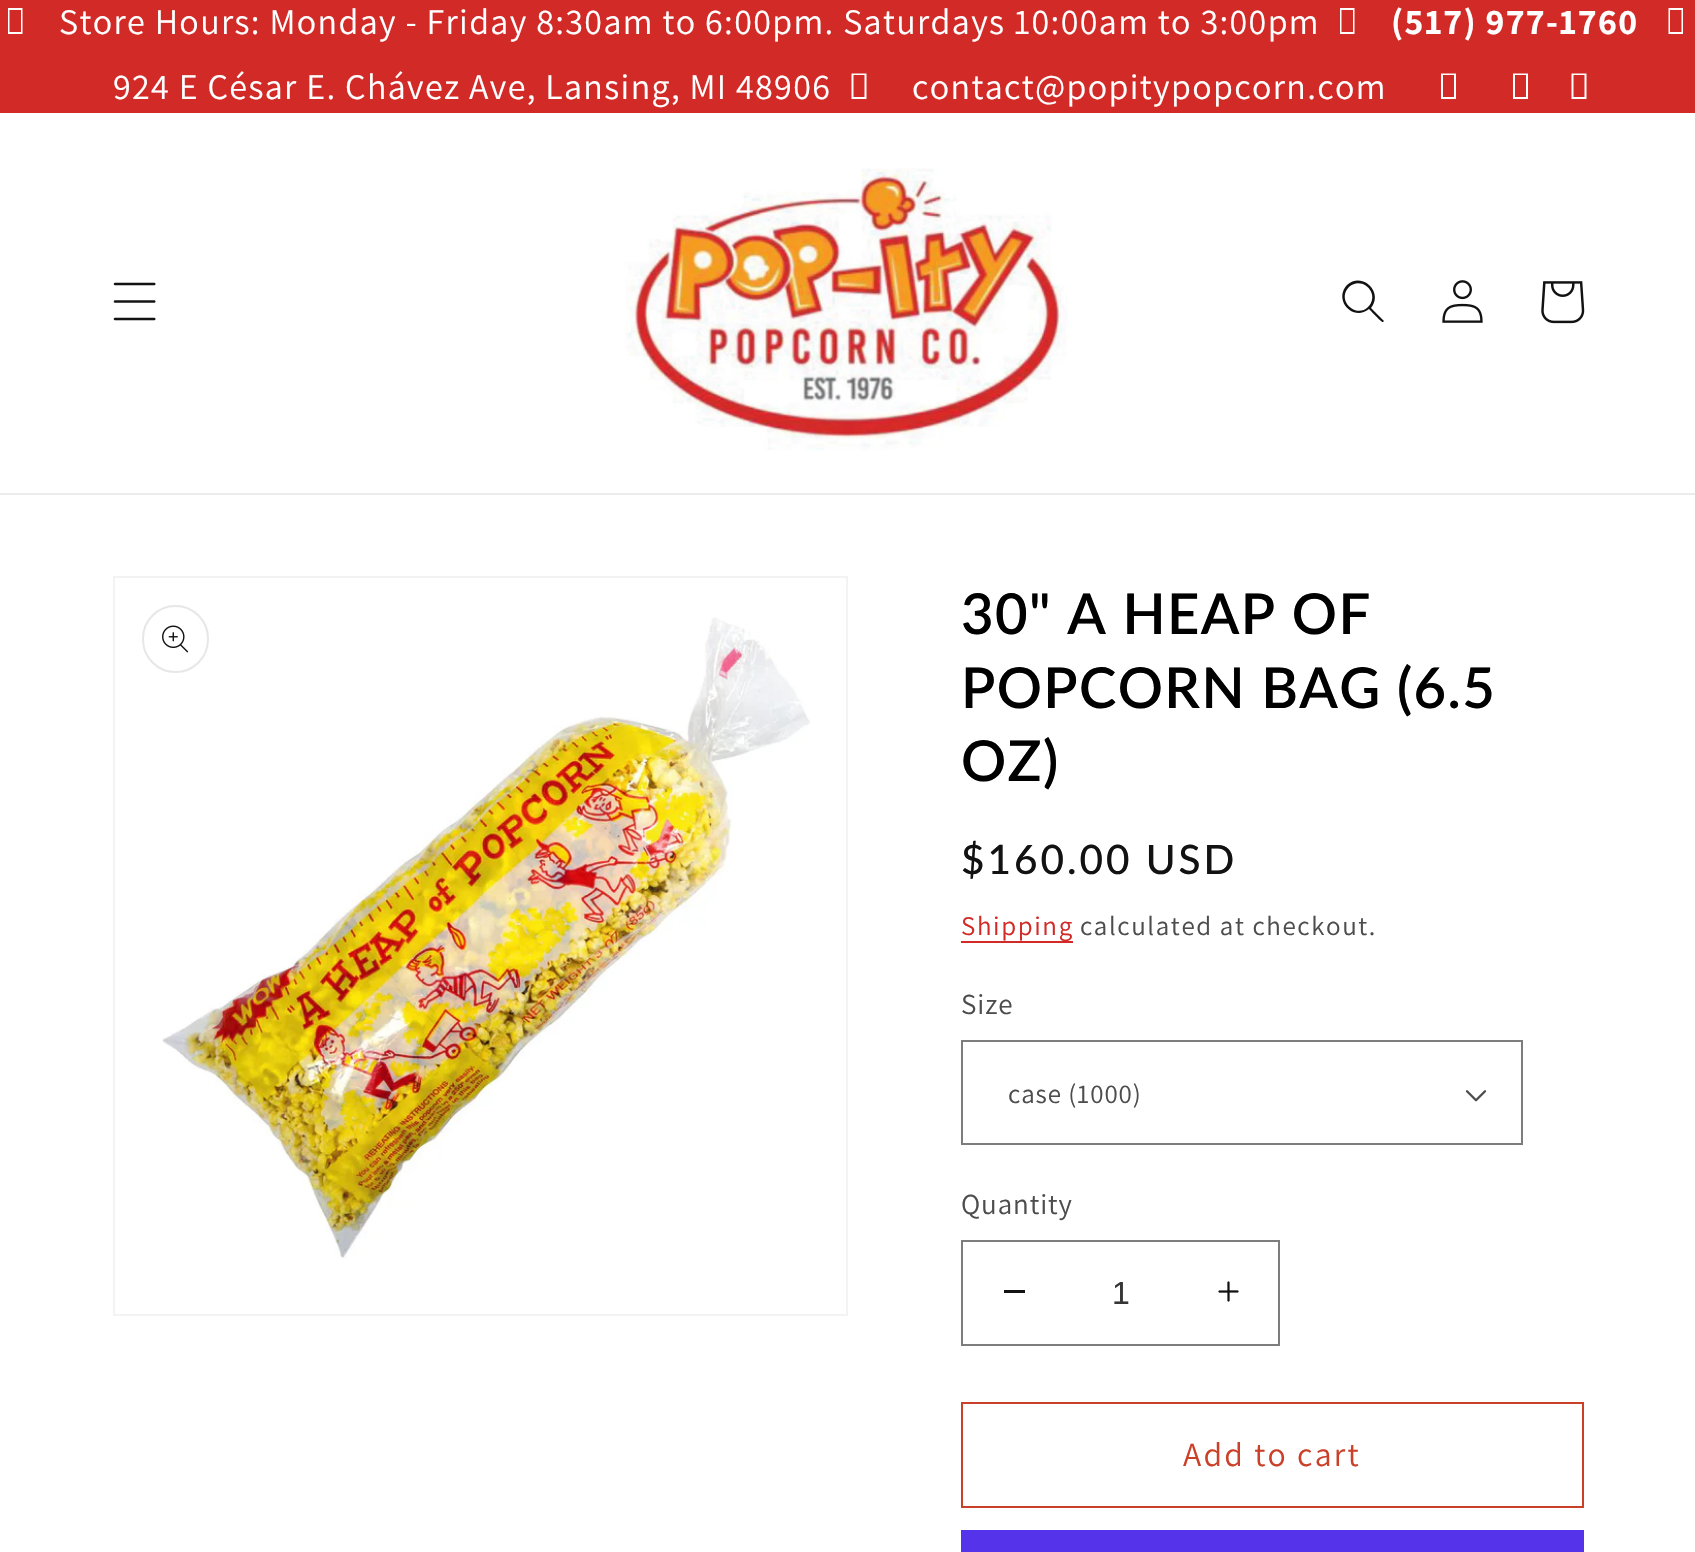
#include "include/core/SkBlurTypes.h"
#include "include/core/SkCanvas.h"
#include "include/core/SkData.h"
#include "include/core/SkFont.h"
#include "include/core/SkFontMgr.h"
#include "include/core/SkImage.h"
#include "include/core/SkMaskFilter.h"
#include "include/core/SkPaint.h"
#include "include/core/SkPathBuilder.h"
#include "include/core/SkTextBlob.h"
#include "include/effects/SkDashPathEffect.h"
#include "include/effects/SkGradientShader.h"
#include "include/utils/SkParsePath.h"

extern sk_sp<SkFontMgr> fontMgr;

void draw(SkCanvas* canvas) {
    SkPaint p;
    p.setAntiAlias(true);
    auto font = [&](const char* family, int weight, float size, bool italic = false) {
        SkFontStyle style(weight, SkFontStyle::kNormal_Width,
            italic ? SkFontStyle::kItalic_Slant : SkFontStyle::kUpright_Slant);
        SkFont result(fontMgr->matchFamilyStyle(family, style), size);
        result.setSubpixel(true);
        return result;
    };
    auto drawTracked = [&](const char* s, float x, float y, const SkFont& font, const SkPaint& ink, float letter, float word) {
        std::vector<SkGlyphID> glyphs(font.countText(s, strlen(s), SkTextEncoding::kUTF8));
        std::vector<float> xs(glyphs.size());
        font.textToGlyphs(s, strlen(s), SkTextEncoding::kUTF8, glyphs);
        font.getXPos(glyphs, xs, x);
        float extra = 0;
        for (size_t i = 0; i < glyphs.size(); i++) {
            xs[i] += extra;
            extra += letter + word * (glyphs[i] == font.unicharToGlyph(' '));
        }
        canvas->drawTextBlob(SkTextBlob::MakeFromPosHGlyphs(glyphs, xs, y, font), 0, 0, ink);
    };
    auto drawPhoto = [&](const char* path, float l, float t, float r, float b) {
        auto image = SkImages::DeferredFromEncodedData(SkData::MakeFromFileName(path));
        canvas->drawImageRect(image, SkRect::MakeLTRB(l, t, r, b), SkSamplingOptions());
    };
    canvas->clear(0xFFFFFFFF);
    p.setColor(0xFFD12A27);
    canvas->drawRect(SkRect::MakeLTRB(0, 0, 1695, 113), p);
    p.setColor(0xFFFFFFFF);
    canvas->drawPath(SkPathBuilder().moveTo(8, 34).lineTo(8, 8).lineTo(22.5f, 8).lineTo(22.5f, 34).close().moveTo(9.5f, 32).lineTo(21, 32).lineTo(21, 10).lineTo(9.5f, 10).close().detach(), p);
    auto font1 = font("Assistant", 400, 36);
    drawTracked("Store Hours: Monday - Friday 8:30am to 6:00pm. Saturdays 10:00am to 3:00pm", 59, 34, font1, p, 1.35f, 0);
    canvas->drawPath(SkPathBuilder().moveTo(1340, 34).lineTo(1340, 8).lineTo(1354.5f, 8).lineTo(1354.5f, 34).close().moveTo(1341.5f, 32).lineTo(1353, 32).lineTo(1353, 10).lineTo(1341.5f, 10).close().detach(), p);
    auto font2 = font("Assistant", 700, 36);
    drawTracked("(517) 977-1760", 1391, 34, font2, p, 1.35f, 0);
    canvas->drawPath(SkPathBuilder().moveTo(1668.5f, 34).lineTo(1668.5f, 8).lineTo(1683, 8).lineTo(1683, 34).close().moveTo(1670, 32).lineTo(1681.5f, 32).lineTo(1681.5f, 10).lineTo(1670, 10).close().detach(), p);
    drawTracked("924 E César E. Chávez Ave, Lansing, MI 48906", 113, 99, font1, p, 1.35f, 0);
    canvas->drawPath(SkPathBuilder().moveTo(851.5f, 99).lineTo(851.5f, 73.5f).lineTo(866.5f, 73.5f).lineTo(866.5f, 99).close().moveTo(853.5f, 97).lineTo(864.5f, 97).lineTo(864.5f, 75).lineTo(853.5f, 75).close().detach(), p);
    drawTracked("contact@popitypopcorn.com", 912, 99, font1, p, 1.35f, 0);
    canvas->drawPath(SkPathBuilder().moveTo(1441, 99).lineTo(1441, 73.5f).lineTo(1456, 73.5f).lineTo(1456, 99).close().moveTo(1443, 97).lineTo(1454, 97).lineTo(1454, 75).lineTo(1443, 75).close().detach(), p);
    canvas->drawPath(SkPathBuilder().moveTo(1513, 99).lineTo(1513, 73.5f).lineTo(1528, 73.5f).lineTo(1528, 99).close().moveTo(1515, 97).lineTo(1526, 97).lineTo(1526, 75).lineTo(1515, 75).close().detach(), p);
    canvas->drawPath(SkPathBuilder().moveTo(1571.5f, 99).lineTo(1571.5f, 73.5f).lineTo(1586.5f, 73.5f).lineTo(1586.5f, 99).close().moveTo(1573.5f, 97).lineTo(1584.5f, 97).lineTo(1584.5f, 75).lineTo(1573.5f, 75).close().detach(), p);
    p.setColor(0xFFECECEC);
    canvas->drawRect(SkRect::MakeLTRB(0, 493, 1695, 495), p);
    drawPhoto("media/1.png", 113, 282, 156, 321);
    drawPhoto("media/2.png", 625, 168, 1068, 451);
    p.setColor(0xFF121212);
    canvas->drawPath(SkPathBuilder(SkPathFillType::kEvenOdd).moveTo(1368, 307).cubicTo(1356, 319, 1336, 300, 1349, 287).cubicTo(1362, 275, 1381, 294, 1368, 307).close().moveTo(1369, 309).cubicTo(1353, 322, 1333, 300, 1347, 285).cubicTo(1362, 271, 1384, 292, 1371, 308).lineTo(1384, 321).lineTo(1383, 322).cubicTo(1382, 323, 1371, 311, 1369, 309).close().detach(), p);
    drawPhoto("media/3.png", 1442, 280, 1483, 323);
    drawPhoto("media/4.png", 1541, 281, 1585, 324);
    p.setStyle(SkPaint::kStroke_Style);
    p.setStrokeWidth(2);
    p.setColor(0xFFF3F3F3);
    canvas->drawRect(SkRect::MakeLTRB(114, 577, 847, 1315), p);
    drawPhoto("media/5.png", 162, 617, 810, 1259);
    p.setColor(0xFFE7E7E7);
    canvas->drawRoundRect(SkRect::MakeLTRB(143, 606, 208, 672), 32.5f, 32.5f, p);
    drawPhoto("media/6.png", 162, 625, 189, 653);
    auto font3 = font("Lato", 600, 56.25f);
    p.setStyle(SkPaint::kFill_Style);
    p.setColor(0xFF000000);
    {
        const struct { const char* s; float x, y; } items[] = {
            {"30\" A HEAP OF", 961, 634},
            {"POPCORN BAG (6.5", 961, 708},
            {"OZ)", 961, 781},
        };
        for (auto [s, x, y] : items) {
            drawTracked(s, x, y, font3, p, 1.35f, 0);
        }
    }
    auto font4 = font("Lato", 500, 40.5f);
    p.setColor(0xFF121212);
    drawTracked("$160.00 USD", 961, 874, font4, p, 3, 0);
    p.setColor(0xFFD12A27);
    canvas->drawRect(SkRect::MakeLTRB(961, 941, 1073, 943), p);
    auto font5 = font("Assistant", 400, 27);
    drawTracked("Shipping", 961, 935, font5, p, 1.6f, 0);
    p.setColor(0xFF4D4D4D);
    drawTracked("calculated at checkout.", 1080, 935, font5, p, 1.6f, 0);
    auto font6 = font("Assistant", 400, 29);
    drawTracked("Size", 961, 1014, font6, p, 0.9f, 0);
    drawPhoto("media/7.png", 1465, 1090, 1487, 1102);
    p.setStyle(SkPaint::kStroke_Style);
    p.setColor(0xFF7D7D7D);
    canvas->drawRect(SkRect::MakeLTRB(962, 1041, 1522, 1144), p);
    p.setStyle(SkPaint::kFill_Style);
    p.setColor(0xFF4D4D4D);
    drawTracked("case (1000)", 1008, 1103, font5, p, 0.9f, 0);
    drawTracked("Quantity", 961, 1214, font6, p, 0.9f, 0);
    p.setColor(0xFF121212);
    canvas->drawRect(SkRect::MakeLTRB(1004, 1290, 1025, 1293), p);
    drawPhoto("media/8.png", 1218, 1281, 1239, 1302);
    p.setStyle(SkPaint::kStroke_Style);
    p.setColor(0xFF7D7D7D);
    canvas->drawRect(SkRect::MakeLTRB(962, 1241, 1279, 1345), p);
    auto font7 = font("Liberation Sans", 400, 32);
    p.setStyle(SkPaint::kFill_Style);
    p.setColor(0xFF363636);
    canvas->drawString("1", 1112, 1304, font7, p);
    p.setStyle(SkPaint::kStroke_Style);
    p.setColor(0xFFCB4028);
    canvas->drawRect(SkRect::MakeLTRB(962, 1403, 1583, 1507), p);
    auto font8 = font("Assistant", 400, 33.75f);
    p.setStyle(SkPaint::kFill_Style);
    drawTracked("Add to cart", 1183, 1466, font8, p, 2.25f, 0);
    p.setColor(0xFF5433EB);
    canvas->drawRect(SkRect::MakeLTRB(961, 1530, 1584, 1552), p);
}
